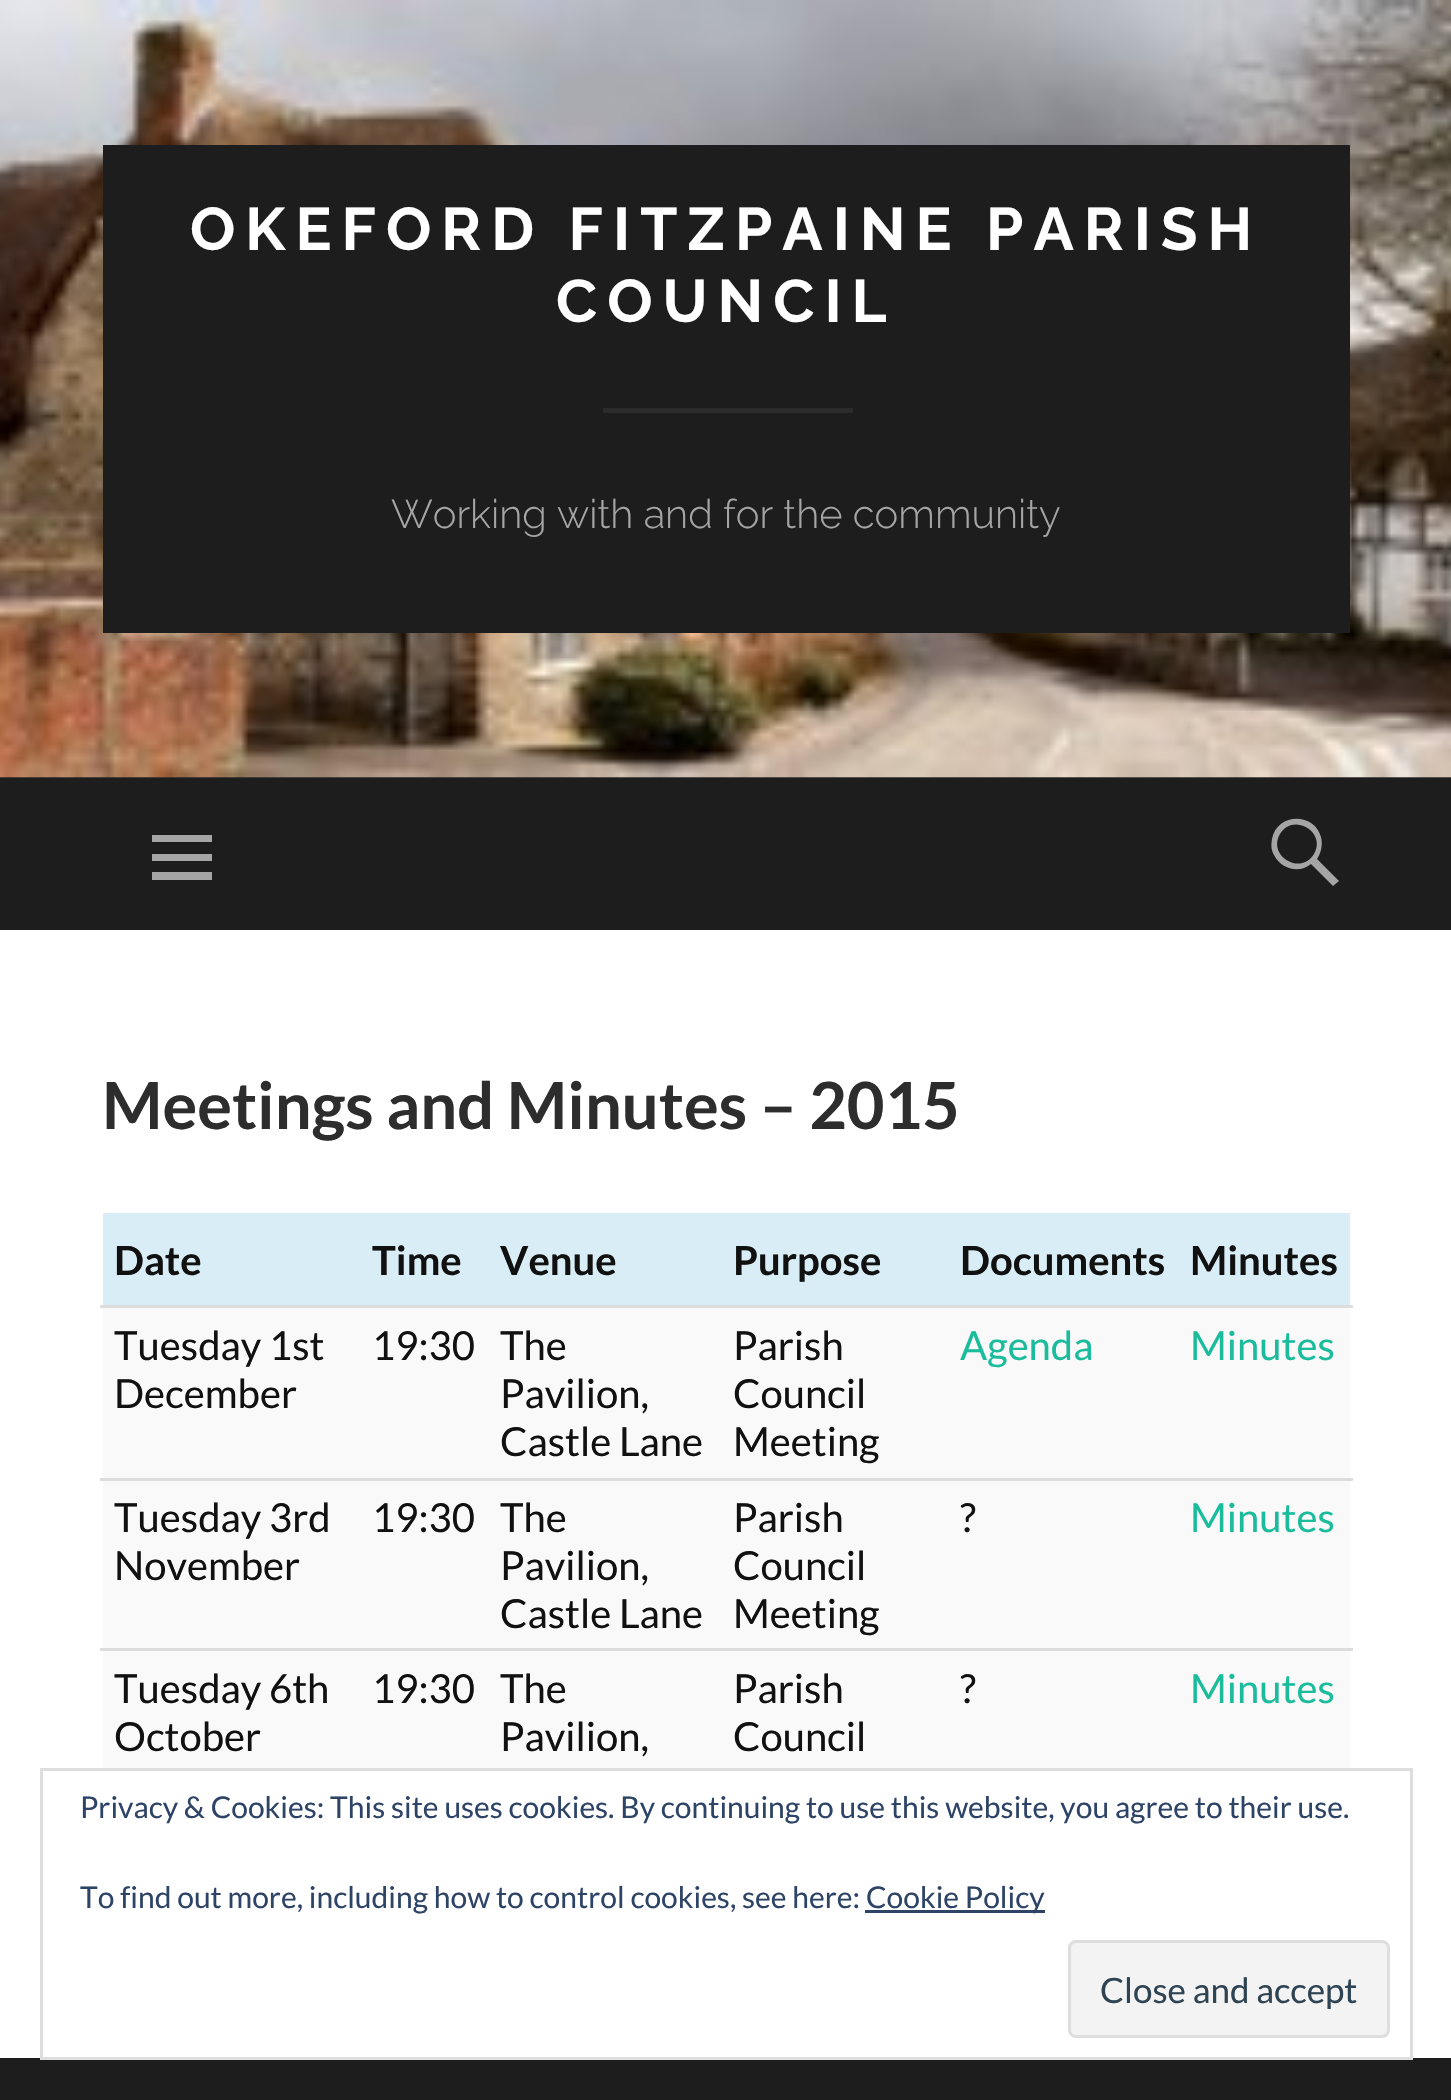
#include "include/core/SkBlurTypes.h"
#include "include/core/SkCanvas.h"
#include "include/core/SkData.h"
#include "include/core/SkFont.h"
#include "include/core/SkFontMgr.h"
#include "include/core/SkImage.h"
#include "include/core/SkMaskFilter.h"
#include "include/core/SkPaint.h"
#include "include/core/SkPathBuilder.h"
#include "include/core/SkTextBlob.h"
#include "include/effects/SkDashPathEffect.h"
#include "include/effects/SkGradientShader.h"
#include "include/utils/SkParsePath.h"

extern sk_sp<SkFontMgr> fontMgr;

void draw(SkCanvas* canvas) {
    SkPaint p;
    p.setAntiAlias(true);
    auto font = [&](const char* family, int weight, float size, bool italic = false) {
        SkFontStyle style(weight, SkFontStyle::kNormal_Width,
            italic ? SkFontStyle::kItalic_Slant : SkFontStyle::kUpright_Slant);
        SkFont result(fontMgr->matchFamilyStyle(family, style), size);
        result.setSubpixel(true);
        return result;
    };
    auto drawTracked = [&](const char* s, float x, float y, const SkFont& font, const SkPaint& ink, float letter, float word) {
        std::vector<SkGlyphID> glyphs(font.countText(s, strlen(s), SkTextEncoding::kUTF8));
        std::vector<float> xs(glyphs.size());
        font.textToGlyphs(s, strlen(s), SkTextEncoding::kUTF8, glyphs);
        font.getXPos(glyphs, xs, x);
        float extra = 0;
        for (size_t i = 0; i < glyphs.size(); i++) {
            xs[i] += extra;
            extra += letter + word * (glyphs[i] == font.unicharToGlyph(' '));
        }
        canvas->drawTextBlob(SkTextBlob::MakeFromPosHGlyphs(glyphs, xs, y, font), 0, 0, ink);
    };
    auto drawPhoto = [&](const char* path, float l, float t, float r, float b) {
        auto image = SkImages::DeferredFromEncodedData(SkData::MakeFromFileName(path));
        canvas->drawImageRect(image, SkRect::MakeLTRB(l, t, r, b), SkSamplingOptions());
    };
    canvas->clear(0xFFFFFFFF);
    p.setColor(0xFF262626);
    canvas->drawRect(SkRect::MakeLTRB(0, 777, 1451, 778), p);
    drawPhoto("media/1.png", 0, 0, 1451, 778);
    p.setColor(0xFF1D1D1D);
    canvas->drawRect(SkRect::MakeLTRB(103, 145, 1350, 633), p);
    auto font1 = font("Raleway", 700, 60);
    p.setColor(0xFFFFFFFF);
    drawTracked("OKEFORD FITZPAINE PARISH", 190, 250, font1, p, 10, 0);
    drawTracked("COUNCIL", 556, 322, font1, p, 10, 0);
    p.setColor(0xFF2B2B2B);
    canvas->drawRect(SkRect::MakeLTRB(603, 408, 853, 413), p);
    auto font2 = font("Raleway", 300, 40);
    p.setColor(0xFFA5A5A5);
    canvas->drawString("Working with and for the community", 391, 528, font2, p);
    p.setColor(0xFF1D1D1D);
    canvas->drawRect(SkRect::MakeLTRB(0, 778, 1451, 930), p);
    p.setColor(0xFFA5A5A5);
    canvas->drawPath(SkPathBuilder().moveTo(152, 880).lineTo(152, 872).lineTo(212, 872).lineTo(212, 880).close().moveTo(152, 835).lineTo(212, 835).lineTo(212, 842).lineTo(152, 842).close().moveTo(152, 861).lineTo(152, 854).lineTo(212, 854).lineTo(212, 861).close().detach(), p);
    canvas->drawPath(SkPathBuilder().moveTo(1339, 881).lineTo(1333, 886).lineTo(1311, 864).cubicTo(1299, 874, 1281, 869, 1274, 855).cubicTo(1271, 850, 1271, 845, 1272, 839).cubicTo(1277, 813, 1314, 812, 1321, 837).cubicTo(1323, 845, 1321, 853, 1317, 859).close().moveTo(1280, 834).cubicTo(1267, 856, 1301, 876, 1314, 854).cubicTo(1327, 832, 1293, 812, 1280, 834).close().detach(), p);
    auto font3 = font("Lato", 700, 65);
    p.setColor(0xFF2D2D2D);
    canvas->drawString("Meetings and Minutes – 2015", 102, 1129, font3, p);
    p.setColor(0xFFD9EDF7);
    canvas->drawRect(SkRect::MakeLTRB(103, 1213, 1350, 1305), p);
    auto font4 = font("Lato", 700, 40);
    p.setColor(0xFF111111);
    {
        const struct { const char* s; float x, y; } items[] = {
            {"Date", 114, 1275},
            {"Time", 372, 1275},
            {"Venue", 500, 1275},
            {"Purpose", 733, 1275},
            {"Documents", 960, 1275},
            {"Minutes", 1190, 1275},
        };
        for (auto [s, x, y] : items) {
            canvas->drawString(s, x, y, font4, p);
        }
    }
    p.setColor(0xFFF9F9F9);
    canvas->drawRect(SkRect::MakeLTRB(103, 1308, 1350, 1478), p);
    auto font5 = font("Lato", 400, 40);
    p.setColor(0xFF111111);
    {
        const struct { const char* s; float x, y; } items[] = {
            {"Tuesday 1st", 114, 1360},
            {"December", 114, 1408},
            {"19:30", 372, 1360},
            {"The", 500, 1360},
            {"Pavilion,", 500, 1408},
            {"Castle Lane", 500, 1456},
            {"Parish", 733, 1360},
            {"Council", 733, 1408},
            {"Meeting", 733, 1456},
        };
        for (auto [s, x, y] : items) {
            canvas->drawString(s, x, y, font5, p);
        }
    }
    p.setColor(0xFF1ABC9C);
    canvas->drawString("Agenda", 960, 1360, font5, p);
    p.setColor(0xFFDDDDDD);
    canvas->drawRect(SkRect::MakeLTRB(100, 1305, 1353, 1308), p);
    p.setColor(0xFF1ABC9C);
    canvas->drawString("Minutes", 1190, 1360, font5, p);
    p.setColor(0xFFF9F9F9);
    canvas->drawRect(SkRect::MakeLTRB(103, 1481, 1350, 1648), p);
    p.setColor(0xFF111111);
    {
        const struct { const char* s; float x, y; } items[] = {
            {"Tuesday 3rd", 114, 1532},
            {"November", 114, 1580},
            {"19:30", 372, 1532},
            {"The", 500, 1532},
            {"Pavilion,", 500, 1580},
            {"Castle Lane", 500, 1628},
            {"Parish", 733, 1532},
            {"Council", 733, 1580},
            {"Meeting", 733, 1628},
            {"?", 960, 1532},
        };
        for (auto [s, x, y] : items) {
            canvas->drawString(s, x, y, font5, p);
        }
    }
    p.setColor(0xFFDDDDDD);
    canvas->drawRect(SkRect::MakeLTRB(100, 1478, 1353, 1481), p);
    p.setColor(0xFF1ABC9C);
    canvas->drawString("Minutes", 1190, 1532, font5, p);
    p.setColor(0xFFF9F9F9);
    canvas->drawRect(SkRect::MakeLTRB(103, 1651, 1350, 1768), p);
    p.setColor(0xFF111111);
    {
        const struct { const char* s; float x, y; } items[] = {
            {"Tuesday 6th", 114, 1703},
            {"October", 114, 1751},
            {"19:30", 372, 1703},
            {"The", 500, 1703},
            {"Pavilion,", 500, 1751},
            {"Parish", 733, 1703},
            {"Council", 733, 1751},
            {"?", 960, 1703},
        };
        for (auto [s, x, y] : items) {
            canvas->drawString(s, x, y, font5, p);
        }
    }
    p.setColor(0xFFDDDDDD);
    canvas->drawRect(SkRect::MakeLTRB(100, 1648, 1353, 1651), p);
    p.setColor(0xFF1ABC9C);
    canvas->drawString("Minutes", 1190, 1703, font5, p);
    p.setColor(0xFF1D1D1D);
    canvas->drawRect(SkRect::MakeLTRB(0, 2058, 1451, 2100), p);
    p.setStyle(SkPaint::kStroke_Style);
    p.setStrokeWidth(3);
    p.setColor(0xFFDEDEDE);
    canvas->drawRect(SkRect::MakeLTRB(41.5f, 1769.5f, 1411.5f, 2058.5f), p);
    auto font6 = font("Lato", 400, 30);
    p.setStyle(SkPaint::kFill_Style);
    p.setColor(0xFF2E4467);
    canvas->drawString("Privacy & Cookies: This site uses cookies. By continuing to use this website, you agree to their use.", 80, 1818, font6, p);
    canvas->drawString("To find out more, including how to control cookies, see here:", 80, 1908, font6, p);
    canvas->drawRect(SkRect::MakeLTRB(865, 1910, 1045, 1913), p);
    canvas->drawString("Cookie Policy", 866, 1908, font6, p);
    p.setColor(0xFFF3F3F3);
    canvas->drawRoundRect(SkRect::MakeLTRB(1069.5f, 1941.5f, 1388.5f, 2036.5f), 6.5f, 6.5f, p);
    p.setStyle(SkPaint::kStroke_Style);
    p.setColor(0xFFDEDEDE);
    canvas->drawRoundRect(SkRect::MakeLTRB(1069.5f, 1941.5f, 1388.5f, 2036.5f), 6.5f, 6.5f, p);
    auto font7 = font("Lato", 400, 35);
    p.setStyle(SkPaint::kFill_Style);
    p.setColor(0xFF2E4453);
    canvas->drawString("Close and accept", 1100, 2003, font7, p);
}
